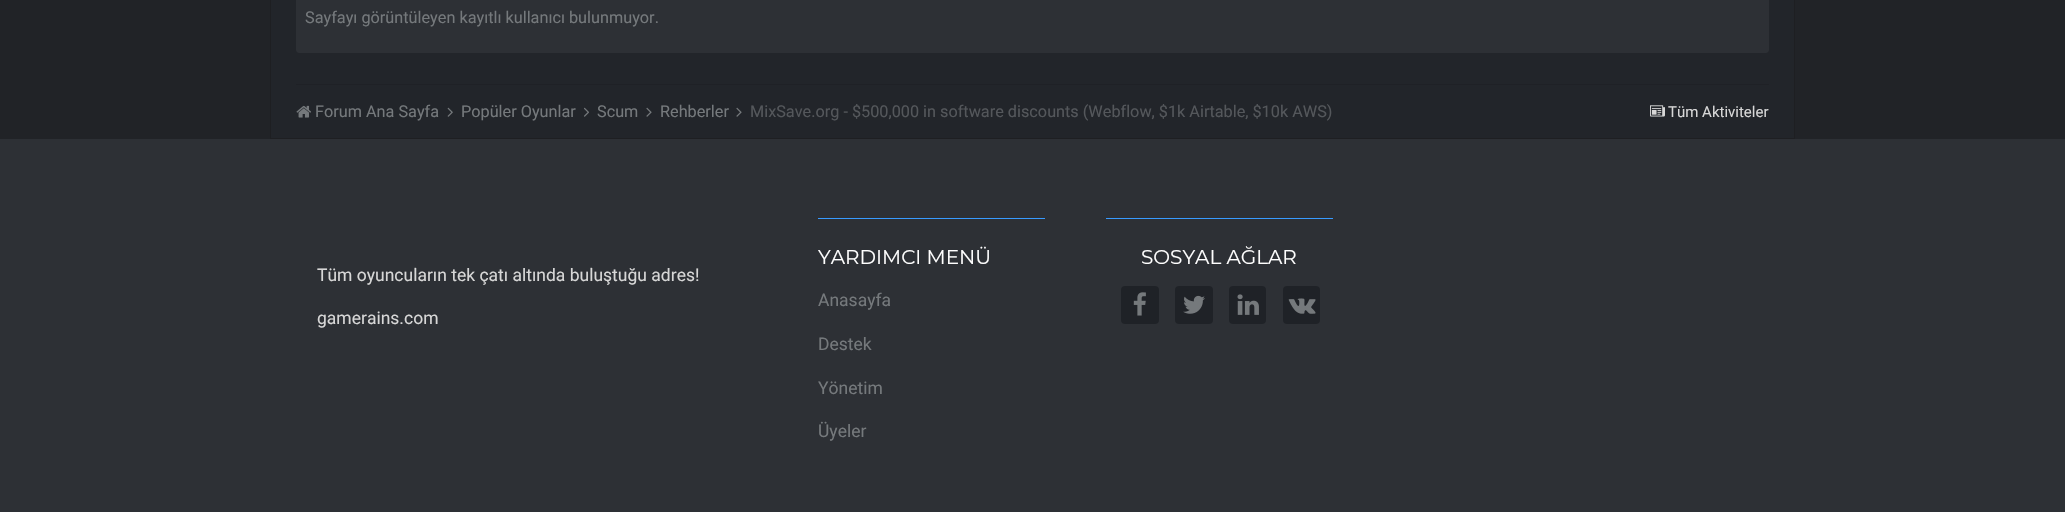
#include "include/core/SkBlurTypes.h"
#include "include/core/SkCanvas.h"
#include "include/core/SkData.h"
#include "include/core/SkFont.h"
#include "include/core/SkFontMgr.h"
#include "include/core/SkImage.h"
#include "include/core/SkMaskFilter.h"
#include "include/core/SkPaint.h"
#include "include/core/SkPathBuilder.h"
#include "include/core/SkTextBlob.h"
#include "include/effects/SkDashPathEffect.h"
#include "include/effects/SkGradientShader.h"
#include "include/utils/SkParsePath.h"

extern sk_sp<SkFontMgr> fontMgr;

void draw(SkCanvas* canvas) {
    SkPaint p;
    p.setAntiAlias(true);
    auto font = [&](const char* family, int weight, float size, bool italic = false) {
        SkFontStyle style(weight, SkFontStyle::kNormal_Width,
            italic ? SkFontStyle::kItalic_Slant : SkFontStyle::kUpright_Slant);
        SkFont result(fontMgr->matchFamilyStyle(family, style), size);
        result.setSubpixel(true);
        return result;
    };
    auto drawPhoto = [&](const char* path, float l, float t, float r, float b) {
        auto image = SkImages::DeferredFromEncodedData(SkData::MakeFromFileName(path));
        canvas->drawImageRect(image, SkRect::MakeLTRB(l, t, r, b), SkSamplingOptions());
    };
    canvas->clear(0xFF212327);
    p.setColor(0xFF22252A);
    canvas->drawRect(SkRect::MakeLTRB(270.5f, -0.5f, 1794.5f, 138.5f), p);
    p.setStyle(SkPaint::kStroke_Style);
    p.setStrokeWidth(1);
    p.setColor(0xFF1E1F22);
    canvas->drawRect(SkRect::MakeLTRB(270.5f, -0.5f, 1794.5f, 138.5f), p);
    p.setStyle(SkPaint::kFill_Style);
    p.setColor(0xFF2D3035);
    canvas->drawRoundRect(SkRect::MakeLTRB(296, -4, 1769, 53), 4, 4, p);
    auto font1 = font("Roboto", 400, 16.25f);
    p.setColor(0xFF75797C);
    canvas->drawString("Sayfayı görüntüleyen kayıtlı kullanıcı bulunmuyor.", 305, 23, font1, p);
    p.setColor(0xFF1F2126);
    canvas->drawRect(SkRect::MakeLTRB(296, 84, 1769, 85), p);
    drawPhoto("media/1.png", 296, 105, 311, 118);
    p.setColor(0xFF75797C);
    canvas->drawString("Forum Ana Sayfa", 315, 117, font1, p);
    drawPhoto("media/2.png", 447, 107, 453, 117);
    canvas->drawString("Popüler Oyunlar", 461, 117, font1, p);
    drawPhoto("media/3.png", 584, 107, 589, 117);
    canvas->drawString("Scum", 597, 117, font1, p);
    drawPhoto("media/4.png", 646, 107, 652, 117);
    canvas->drawString("Rehberler", 660, 117, font1, p);
    drawPhoto("media/4.png", 736, 107, 742, 117);
    canvas->save();
    canvas->clipRect(SkRect::MakeLTRB(750, 104, 1333, 123));
    p.setColor(0xFF54575B);
    canvas->drawString("MixSave.org - $500,000 in software discounts (Webflow, $1k Airtable, $10k AWS)", 750, 117, font1, p);
    canvas->restore();
    drawPhoto("media/5.png", 1650, 105, 1665, 117);
    auto font2 = font("Roboto", 400, 15);
    p.setColor(0xFFD7D7D7);
    canvas->drawString("Tüm Aktiviteler", 1668, 117, font2, p);
    p.setColor(0xFF2D3035);
    canvas->drawRect(SkRect::MakeLTRB(0, 139, 2065, 512), p);
    p.setColor(0xFF389BFF);
    canvas->drawRect(SkRect::MakeLTRB(818, 218, 1045, 219), p);
    auto font3 = font("Montserrat", 400, 20);
    p.setColor(0xFFFFFFFF);
    canvas->drawString("YARDIMCI MENÜ", 818, 264, font3, p);
    auto font4 = font("Roboto", 400, 17.5f);
    p.setColor(0xFF75797C);
    {
        const struct { const char* s; float x, y; } items[] = {
            {"Anasayfa", 818, 306},
            {"Destek", 818, 350},
            {"Yönetim", 818, 394},
            {"Üyeler", 818, 437},
        };
        for (auto [s, x, y] : items) {
            canvas->drawString(s, x, y, font4, p);
        }
    }
    p.setColor(0xFF389BFF);
    canvas->drawRect(SkRect::MakeLTRB(1106, 218, 1333, 219), p);
    p.setColor(0xFFFFFFFF);
    canvas->drawString("SOSYAL AĞLAR", 1141, 264, font3, p);
    p.setColor(0xFF1F2227);
    canvas->drawRoundRect(SkRect::MakeLTRB(1121, 286, 1159, 324), 4, 4, p);
    drawPhoto("media/6.png", 1133, 292, 1146, 316);
    canvas->drawRoundRect(SkRect::MakeLTRB(1175, 286, 1213, 324), 4, 4, p);
    drawPhoto("media/7.png", 1183, 295, 1205, 314);
    canvas->drawRoundRect(SkRect::MakeLTRB(1229, 286, 1266, 324), 4, 4, p);
    drawPhoto("media/8.png", 1237, 294, 1259, 315);
    canvas->drawRoundRect(SkRect::MakeLTRB(1283, 286, 1320, 324), 4, 4, p);
    drawPhoto("media/9.png", 1288, 298, 1316, 314);
    p.setColor(0xFFD7D7D7);
    canvas->drawString("Tüm oyuncuların tek çatı altında buluştuğu adres!", 317, 281, font4, p);
    canvas->drawString("gamerains.com", 317, 324, font4, p);
}
